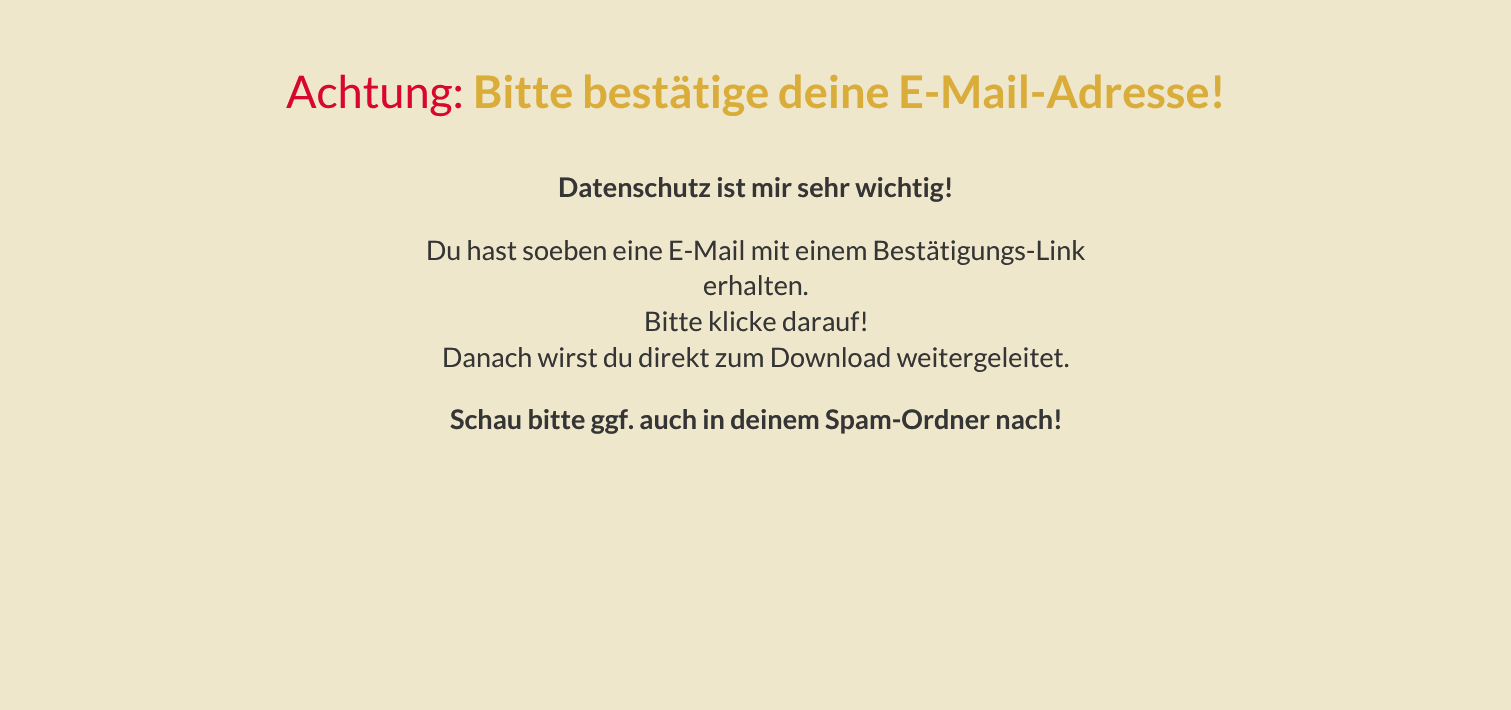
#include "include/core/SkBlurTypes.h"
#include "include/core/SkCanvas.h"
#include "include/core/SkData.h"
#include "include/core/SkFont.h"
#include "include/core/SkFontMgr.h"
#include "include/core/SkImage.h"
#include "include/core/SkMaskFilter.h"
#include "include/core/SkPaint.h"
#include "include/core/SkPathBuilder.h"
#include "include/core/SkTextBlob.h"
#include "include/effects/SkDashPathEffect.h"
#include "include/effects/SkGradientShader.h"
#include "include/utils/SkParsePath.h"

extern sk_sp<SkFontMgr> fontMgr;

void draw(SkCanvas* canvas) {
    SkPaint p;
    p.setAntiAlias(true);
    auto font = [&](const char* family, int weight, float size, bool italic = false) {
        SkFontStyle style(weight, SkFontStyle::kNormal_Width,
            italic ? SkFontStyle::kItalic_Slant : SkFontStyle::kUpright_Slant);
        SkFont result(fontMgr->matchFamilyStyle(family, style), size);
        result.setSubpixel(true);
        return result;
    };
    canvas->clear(0xFFEFE7CB);
    auto font1 = font("Lato", 400, 45);
    p.setColor(0xFFD9072D);
    canvas->drawString("Achtung:", 286, 108, font1, p);
    auto font2 = font("Lato", 700, 45);
    p.setColor(0xFFDAAD3A);
    canvas->drawString("Bitte bestätige deine E-Mail-Adresse!", 473, 108, font2, p);
    auto font3 = font("Lato", 700, 27);
    p.setColor(0xFF353535);
    canvas->drawString("Datenschutz ist mir sehr wichtig!", 558, 197, font3, p);
    auto font4 = font("Lato", 400, 27);
    {
        const struct { const char* s; float x, y; } items[] = {
            {"Du hast soeben eine E-Mail mit einem Bestätigungs-Link", 426, 260},
            {"erhalten.", 703, 295},
            {"Bitte klicke darauf!", 644, 331},
            {"Danach wirst du direkt zum Download weitergeleitet.", 442, 367},
        };
        for (auto [s, x, y] : items) {
            canvas->drawString(s, x, y, font4, p);
        }
    }
    canvas->drawString("Schau bitte ggf. auch in deinem Spam-Ordner nach!", 450, 429, font3, p);
}
